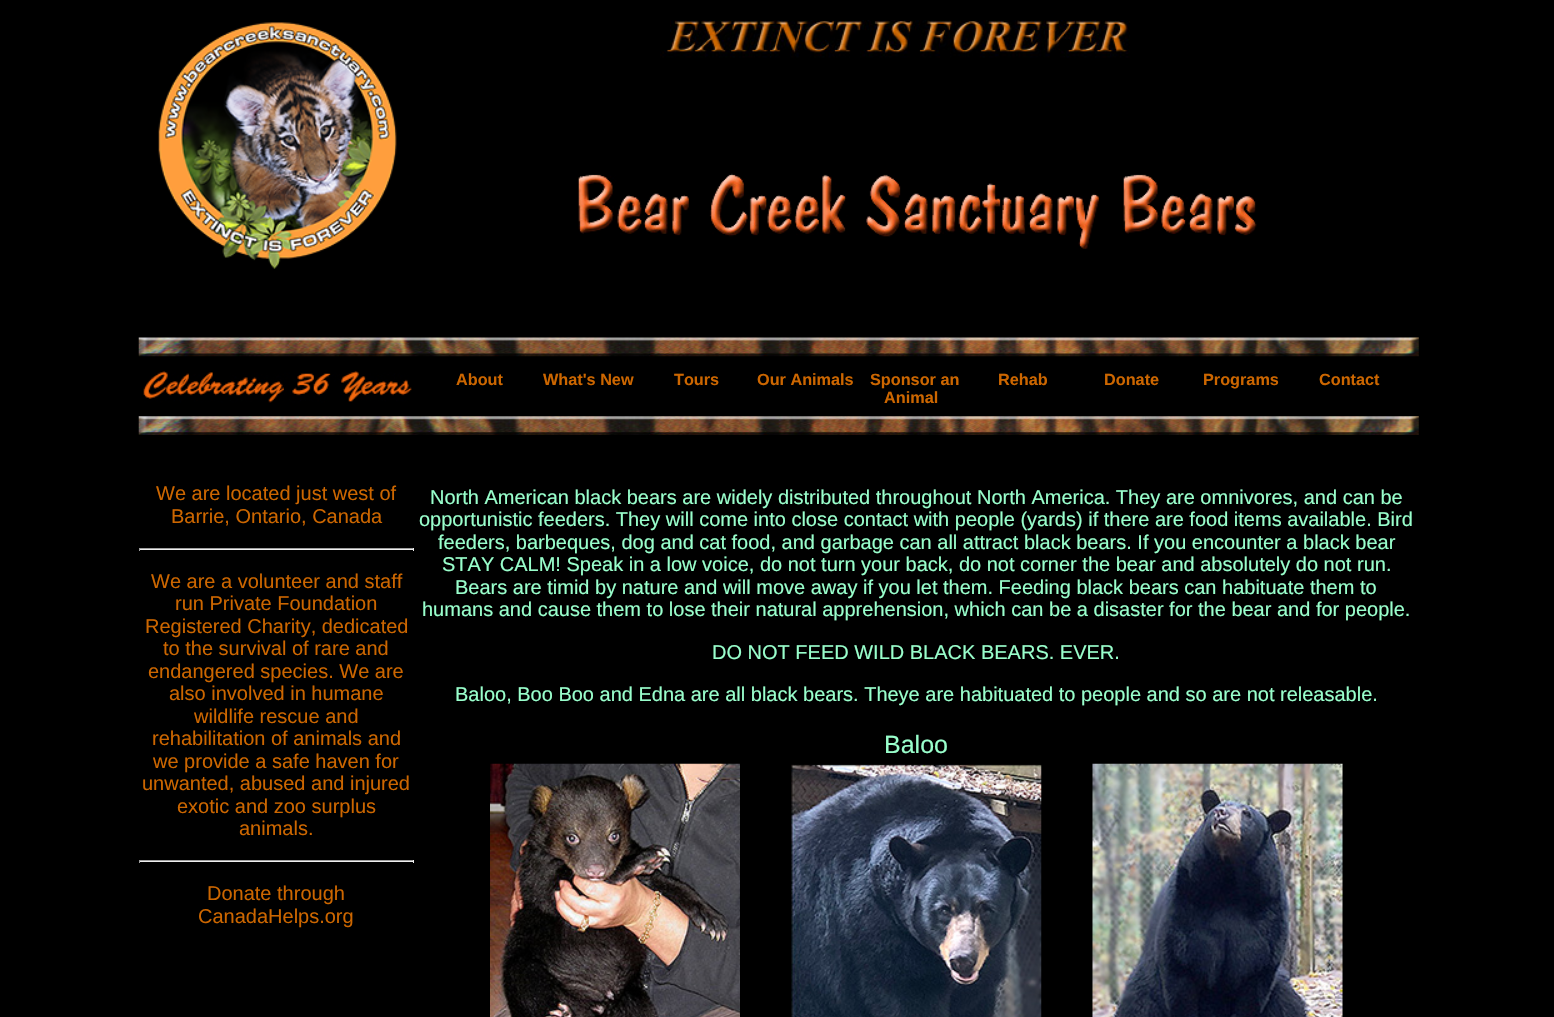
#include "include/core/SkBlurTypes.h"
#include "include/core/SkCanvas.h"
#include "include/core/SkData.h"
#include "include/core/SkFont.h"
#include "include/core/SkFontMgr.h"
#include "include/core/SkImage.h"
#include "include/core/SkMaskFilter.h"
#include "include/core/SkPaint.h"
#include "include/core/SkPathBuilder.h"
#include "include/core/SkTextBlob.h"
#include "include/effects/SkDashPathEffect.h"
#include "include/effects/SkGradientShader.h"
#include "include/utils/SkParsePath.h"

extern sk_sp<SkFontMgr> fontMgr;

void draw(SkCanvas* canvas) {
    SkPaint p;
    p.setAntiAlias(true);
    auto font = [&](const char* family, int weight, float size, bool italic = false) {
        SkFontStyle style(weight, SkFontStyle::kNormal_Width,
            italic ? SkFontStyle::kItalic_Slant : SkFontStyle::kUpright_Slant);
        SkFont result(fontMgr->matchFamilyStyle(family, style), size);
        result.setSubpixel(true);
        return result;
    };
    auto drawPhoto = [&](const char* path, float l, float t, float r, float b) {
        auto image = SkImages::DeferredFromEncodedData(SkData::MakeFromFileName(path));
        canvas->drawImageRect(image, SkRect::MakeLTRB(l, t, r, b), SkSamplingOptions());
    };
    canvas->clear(0xFF000000);
    drawPhoto("media/1.png", 158, 22, 397, 269);
    drawPhoto("media/2.png", 660, 20, 1130, 58);
    drawPhoto("media/3.png", 578, 173, 1257, 249);
    drawPhoto("media/4.png", 138, 337, 1419, 357);
    drawPhoto("media/5.png", 143, 371, 412, 403);
    auto font1 = font("Liberation Sans", 700, 16.25f);
    p.setColor(0xFFCC6600);
    {
        const struct { const char* s; float x, y; } items[] = {
            {"About", 456, 385},
            {"What's New", 543, 385},
            {"Tours", 674, 385},
            {"Our Animals", 757, 385},
            {"Sponsor an", 870, 385},
            {"Animal", 884, 403},
            {"Rehab", 998, 385},
            {"Donate", 1104, 385},
            {"Programs", 1203, 385},
            {"Contact", 1319, 385},
        };
        for (auto [s, x, y] : items) {
            canvas->drawString(s, x, y, font1, p);
        }
    }
    drawPhoto("media/6.png", 138, 416, 1419, 435);
    auto font2 = font("Liberation Sans", 400, 20);
    canvas->drawString("We are located just west of", 156, 500, font2, p);
    canvas->drawString("Barrie, Ontario, Canada", 171, 523, font2, p);
    {
        const struct { float l, t, r, b; SkColor color; } items[] = {
            {139, 548, 414, 549, 0xFF9F9F9F},
            {413, 548, 414, 551, 0xFFEEEEEE},
            {139, 549, 414, 550, 0xFFEEEEEE},
            {139, 548, 140, 551, 0xFF9F9F9F},
        };
        for (auto [l, t, r, b, color] : items) {
            p.setColor(color);
            canvas->drawRect(SkRect::MakeLTRB(l, t, r, b), p);
        }
    }
    p.setColor(0xFFCC6600);
    {
        const struct { const char* s; float x, y; } items[] = {
            {"We are a volunteer and staff", 151, 588},
            {"run Private Foundation", 175, 610},
            {"Registered Charity, dedicated", 145, 633},
            {"to the survival of rare and", 163, 655},
            {"endangered species. We are", 148, 678},
            {"also involved in humane", 169, 700},
            {"wildlife rescue and", 194, 723},
            {"rehabilitation of animals and", 152, 745},
            {"we provide a safe haven for", 153, 768},
            {"unwanted, abused and injured", 142, 790},
            {"exotic and zoo surplus", 177, 813},
            {"animals.", 239, 835},
        };
        for (auto [s, x, y] : items) {
            canvas->drawString(s, x, y, font2, p);
        }
    }
    {
        const struct { float l, t, r, b; SkColor color; } items[] = {
            {139, 860, 414, 861, 0xFF9F9F9F},
            {413, 860, 414, 863, 0xFFEEEEEE},
            {139, 861, 414, 862, 0xFFEEEEEE},
            {139, 860, 140, 863, 0xFF9F9F9F},
        };
        for (auto [l, t, r, b, color] : items) {
            p.setColor(color);
            canvas->drawRect(SkRect::MakeLTRB(l, t, r, b), p);
        }
    }
    p.setColor(0xFFCC6600);
    canvas->drawString("Donate through", 207, 900, font2, p);
    canvas->drawString("CanadaHelps.org", 198, 923, font2, p);
    p.setColor(0xFF99FFCC);
    {
        const struct { const char* s; float x, y; } items[] = {
            {"North American black bears are widely distributed throughout North America. They are omnivores, and can be", 430, 504},
            {"opportunistic feeders. They will come into close contact with people (yards) if there are food items available. Bird", 419, 526},
            {"feeders, barbeques, dog and cat food, and garbage can all attract black bears. If you encounter a black bear", 438, 549},
            {"STAY CALM! Speak in a low voice, do not turn your back, do not corner the bear and absolutely do not run.", 442, 571},
            {"Bears are timid by nature and will move away if you let them. Feeding black bears can habituate them to", 455, 594},
            {"humans and cause them to lose their natural apprehension, which can be a disaster for the bear and for people.", 422, 616},
            {"DO NOT FEED WILD BLACK BEARS. EVER.", 712, 659},
            {"Baloo, Boo Boo and Edna are all black bears. Theye are habituated to people and so are not releasable.", 455, 701},
        };
        for (auto [s, x, y] : items) {
            canvas->drawString(s, x, y, font2, p);
        }
    }
    auto font3 = font("Liberation Sans", 400, 25);
    canvas->drawString("Baloo", 884, 753, font3, p);
    drawPhoto("media/7.png", 490, 763, 740, 1017);
    drawPhoto("media/8.png", 791, 764, 1042, 1017);
    drawPhoto("media/9.png", 1092, 763, 1343, 1017);
}
